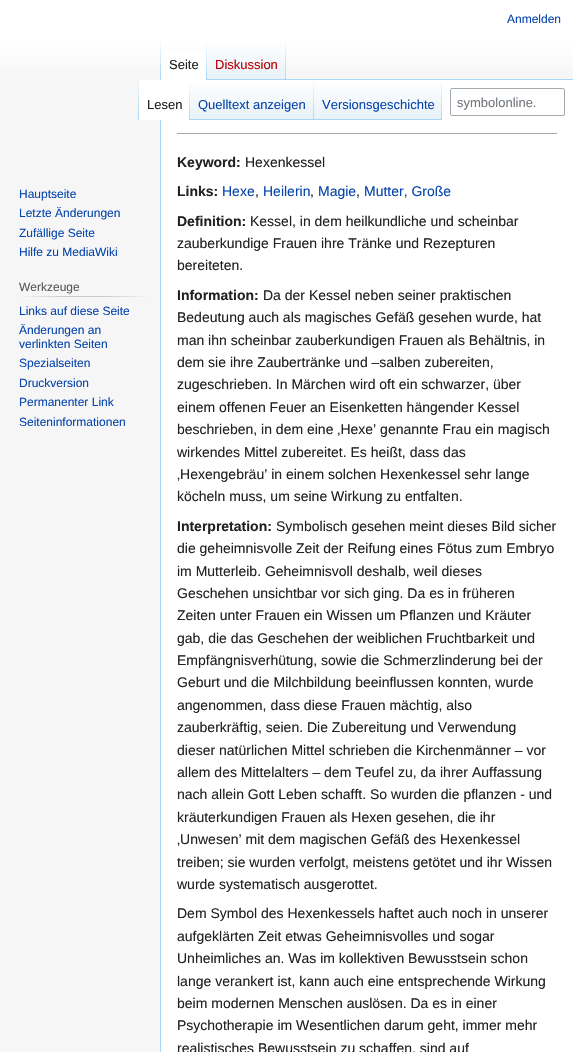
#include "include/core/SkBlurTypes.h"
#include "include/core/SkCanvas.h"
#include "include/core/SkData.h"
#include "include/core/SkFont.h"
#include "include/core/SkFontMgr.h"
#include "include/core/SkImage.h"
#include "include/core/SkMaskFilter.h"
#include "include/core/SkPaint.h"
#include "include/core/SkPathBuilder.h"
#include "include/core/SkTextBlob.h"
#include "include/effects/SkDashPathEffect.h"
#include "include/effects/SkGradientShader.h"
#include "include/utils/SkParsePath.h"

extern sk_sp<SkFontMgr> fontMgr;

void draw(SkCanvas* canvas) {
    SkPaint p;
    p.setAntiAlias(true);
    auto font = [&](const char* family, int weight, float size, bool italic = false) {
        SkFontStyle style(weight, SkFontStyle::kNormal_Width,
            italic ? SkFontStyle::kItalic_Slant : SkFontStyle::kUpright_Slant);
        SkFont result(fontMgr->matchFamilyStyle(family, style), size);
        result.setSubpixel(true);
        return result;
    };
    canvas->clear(0xFFF6F6F6);
    {
        const SkColor colors[] = {0xFFFFFFFF, 0xFFF6F6F6};
        const float stops[] = {0.5f, 1};
        const SkPoint ends[] = {{287, 0}, {287, 80}};
        p.setShader(SkGradientShader::MakeLinear(ends, colors, stops, 2, SkTileMode::kClamp));
        p.setAlpha(255);
    }
    canvas->drawRect(SkRect::MakeLTRB(0, 0, 573, 69), p);
    auto font1 = font("Liberation Sans", 400, 12);
    p.setShader(nullptr);
    p.setColor(0xFF0645AD);
    canvas->drawString("Anmelden", 507, 23, font1, p);
    p.setColor(0xFFA7D7F9);
    canvas->drawRect(SkRect::MakeLTRB(160, 79, 161, 1052), p);
    {
        const SkColor colors[] = {0x00A7D7F9, 0xFFA7D7F9};
        const float stops[] = {0, 1};
        const SkPoint ends[] = {{161, 40}, {161, 80}};
        p.setShader(SkGradientShader::MakeLinear(ends, colors, stops, 2, SkTileMode::kClamp));
        p.setAlpha(255);
    }
    canvas->drawRect(SkRect::MakeLTRB(160, 40, 161, 80), p);
    p.setShader(nullptr);
    p.setColor(0xFFFFFFFF);
    canvas->drawRect(SkRect::MakeLTRB(161, 51, 206, 80), p);
    {
        const SkColor colors[] = {0xFFFFFFFF, 0xFFA7D7F9};
        const float stops[] = {0, 1};
        const SkPoint ends[] = {{207, 40}, {207, 80}};
        p.setShader(SkGradientShader::MakeLinear(ends, colors, stops, 2, SkTileMode::kClamp));
        p.setAlpha(255);
    }
    canvas->drawRect(SkRect::MakeLTRB(206, 40, 207, 80), p);
    auto font2 = font("Liberation Sans", 400, 13);
    p.setShader(nullptr);
    p.setColor(0xFF202122);
    canvas->drawString("Seite", 169, 69, font2, p);
    {
        const SkColor colors[] = {0xFF77C1F6, 0xFFE8F2F8, 0xFFFFFFFF};
        const float stops[] = {0, 0.03f, 1};
        const SkPoint ends[] = {{247, 80}, {247, 40}};
        p.setShader(SkGradientShader::MakeLinear(ends, colors, stops, 3, SkTileMode::kClamp));
        p.setAlpha(255);
    }
    canvas->drawRect(SkRect::MakeLTRB(207, 46, 286, 80), p);
    {
        const SkColor colors[] = {0x00A7D7F9, 0xFFA7D7F9};
        const float stops[] = {0, 1};
        const SkPoint ends[] = {{286, 40}, {286, 80}};
        p.setShader(SkGradientShader::MakeLinear(ends, colors, stops, 2, SkTileMode::kClamp));
        p.setAlpha(255);
    }
    canvas->drawRect(SkRect::MakeLTRB(285, 40, 286, 80), p);
    p.setShader(nullptr);
    p.setColor(0xFFBA0000);
    canvas->drawString("Diskussion", 215, 69, font2, p);
    {
        const SkColor colors[] = {0xFFF6F6F6, 0xFFA7D7F9};
        const float stops[] = {0, 1};
        const SkPoint ends[] = {{139, 80}, {139, 120}};
        p.setShader(SkGradientShader::MakeLinear(ends, colors, stops, 2, SkTileMode::kClamp));
        p.setAlpha(255);
    }
    canvas->drawRect(SkRect::MakeLTRB(138, 80, 139, 120), p);
    p.setShader(nullptr);
    p.setColor(0xFFFFFFFF);
    canvas->drawRect(SkRect::MakeLTRB(139, 80, 161, 120), p);
    canvas->drawRect(SkRect::MakeLTRB(161, 80, 573, 1052), p);
    {
        const SkColor colors[] = {0xFFFFFFFF, 0xFFA7D7F9};
        const float stops[] = {0, 1};
        const SkPoint ends[] = {{190, 80}, {190, 120}};
        p.setShader(SkGradientShader::MakeLinear(ends, colors, stops, 2, SkTileMode::kClamp));
        p.setAlpha(255);
    }
    canvas->drawRect(SkRect::MakeLTRB(189, 80, 190, 120), p);
    p.setShader(nullptr);
    p.setColor(0xFF202122);
    canvas->drawString("Lesen", 147, 109, font2, p);
    {
        const SkColor colors[] = {0xFF77C1F6, 0xFFE8F2F8, 0xFFFFFFFF};
        const float stops[] = {0, 0.03f, 1};
        const SkPoint ends[] = {{252, 120}, {252, 80}};
        p.setShader(SkGradientShader::MakeLinear(ends, colors, stops, 3, SkTileMode::kClamp));
        p.setAlpha(255);
    }
    canvas->drawRect(SkRect::MakeLTRB(190, 84, 314, 120), p);
    {
        const SkColor colors[] = {0x00A7D7F9, 0xFFA7D7F9};
        const float stops[] = {0, 1};
        const SkPoint ends[] = {{314, 80}, {314, 120}};
        p.setShader(SkGradientShader::MakeLinear(ends, colors, stops, 2, SkTileMode::kClamp));
        p.setAlpha(255);
    }
    canvas->drawRect(SkRect::MakeLTRB(313, 80, 314, 120), p);
    p.setShader(nullptr);
    p.setColor(0xFF0645AD);
    canvas->drawString("Quelltext anzeigen", 198, 109, font2, p);
    {
        const SkColor colors[] = {0xFF77C1F6, 0xFFE8F2F8, 0xFFFFFFFF};
        const float stops[] = {0, 0.03f, 1};
        const SkPoint ends[] = {{378, 120}, {378, 80}};
        p.setShader(SkGradientShader::MakeLinear(ends, colors, stops, 3, SkTileMode::kClamp));
        p.setAlpha(255);
    }
    canvas->drawRect(SkRect::MakeLTRB(314, 84, 442, 120), p);
    {
        const SkColor colors[] = {0x00A7D7F9, 0xFFA7D7F9};
        const float stops[] = {0, 1};
        const SkPoint ends[] = {{442, 80}, {442, 120}};
        p.setShader(SkGradientShader::MakeLinear(ends, colors, stops, 2, SkTileMode::kClamp));
        p.setAlpha(255);
    }
    canvas->drawRect(SkRect::MakeLTRB(441, 80, 442, 120), p);
    p.setShader(nullptr);
    p.setColor(0xFF0645AD);
    canvas->drawString("Versionsgeschichte", 322, 109, font2, p);
    p.setStyle(SkPaint::kStroke_Style);
    p.setStrokeWidth(1);
    p.setColor(0xFFA2A9B1);
    canvas->drawRoundRect(SkRect::MakeLTRB(450.5f, 88.5f, 564.5f, 115.5f), 1.5f, 1.5f, p);
    p.setStyle(SkPaint::kFill_Style);
    p.setColor(0xFF72777D);
    canvas->drawString("symbolonline.", 457, 107, font2, p);
    p.setColor(0xFF0645AD);
    {
        const struct { const char* s; float x, y; } items[] = {
            {"Hauptseite", 19, 198},
            {"Letzte Änderungen", 19, 217},
            {"Zufällige Seite", 19, 237},
            {"Hilfe zu MediaWiki", 19, 256},
        };
        for (auto [s, x, y] : items) {
            canvas->drawString(s, x, y, font1, p);
        }
    }
    {
        const SkColor colors[] = {0xFFF6F6F6, 0xFFC8CCD1, 0xFFC8CCD1, 0xFFF6F6F6};
        const float stops[] = {0, 0.33f, 0.66f, 1};
        const SkPoint ends[] = {{19, 297}, {150, 297}};
        p.setShader(SkGradientShader::MakeLinear(ends, colors, stops, 4, SkTileMode::kClamp));
        p.setAlpha(255);
    }
    canvas->drawRect(SkRect::MakeLTRB(19, 296, 150, 297), p);
    p.setShader(nullptr);
    p.setColor(0xFF54595D);
    canvas->drawString("Werkzeuge", 19, 291, font1, p);
    p.setColor(0xFF0645AD);
    {
        const struct { const char* s; float x, y; } items[] = {
            {"Links auf diese Seite", 19, 315},
            {"Änderungen an", 19, 334},
            {"verlinkten Seiten", 19, 348},
            {"Spezialseiten", 19, 367},
            {"Druckversion", 19, 387},
            {"Permanenter Link", 19, 406},
            {"Seiteninformationen", 19, 426},
        };
        for (auto [s, x, y] : items) {
            canvas->drawString(s, x, y, font1, p);
        }
    }
    p.setColor(0xFFA7D7F9);
    canvas->drawRect(SkRect::MakeLTRB(286, 79, 573, 80), p);
    p.setColor(0xFFA2A9B1);
    canvas->drawRect(SkRect::MakeLTRB(177, 133, 557, 134), p);
    auto font3 = font("Liberation Sans", 700, 14);
    p.setColor(0xFF202122);
    canvas->drawString("Keyword:", 177, 167, font3, p);
    auto font4 = font("Liberation Sans", 400, 14);
    canvas->drawString("Hexenkessel", 245, 167, font4, p);
    canvas->drawString("Links:", 177, 196, font3, p);
    p.setColor(0xFF0645AD);
    canvas->drawString("Hexe", 222, 196, font4, p);
    p.setColor(0xFF202122);
    canvas->drawString(",", 255, 196, font4, p);
    p.setColor(0xFF0645AD);
    canvas->drawString("Heilerin", 263, 196, font4, p);
    p.setColor(0xFF202122);
    canvas->drawString(",", 310, 196, font4, p);
    p.setColor(0xFF0645AD);
    canvas->drawString("Magie", 318, 196, font4, p);
    p.setColor(0xFF202122);
    canvas->drawString(",", 356, 196, font4, p);
    p.setColor(0xFF0645AD);
    canvas->drawString("Mutter, Große", 364, 196, font4, p);
    p.setColor(0xFF202122);
    canvas->drawString("Definition:", 177, 226, font3, p);
    {
        const struct { const char* s; float x, y; } items[] = {
            {"Kessel, in dem heilkundliche und scheinbar", 250, 226},
            {"zauberkundige Frauen ihre Tränke und Rezepturen", 177, 248},
            {"bereiteten.", 177, 270},
        };
        for (auto [s, x, y] : items) {
            canvas->drawString(s, x, y, font4, p);
        }
    }
    canvas->drawString("Information:", 177, 300, font3, p);
    {
        const struct { const char* s; float x, y; } items[] = {
            {"Da der Kessel neben seiner praktischen", 263, 300},
            {"Bedeutung auch als magisches Gefäß gesehen wurde, hat", 177, 322},
            {"man ihn scheinbar zauberkundigen Frauen als Behältnis, in", 177, 345},
            {"dem sie ihre Zaubertränke und –salben zubereiten,", 177, 367},
            {"zugeschrieben. In Märchen wird oft ein schwarzer, über", 177, 389},
            {"einem offenen Feuer an Eisenketten hängender Kessel", 177, 412},
            {"beschrieben, in dem eine ‚Hexe’ genannte Frau ein magisch", 177, 434},
            {"wirkendes Mittel zubereitet. Es heißt, dass das", 177, 457},
            {"‚Hexengebräu’ in einem solchen Hexenkessel sehr lange", 177, 479},
            {"köcheln muss, um seine Wirkung zu entfalten.", 177, 501},
        };
        for (auto [s, x, y] : items) {
            canvas->drawString(s, x, y, font4, p);
        }
    }
    canvas->drawString("Interpretation:", 177, 531, font3, p);
    {
        const struct { const char* s; float x, y; } items[] = {
            {"Symbolisch gesehen meint dieses Bild sicher", 276, 531},
            {"die geheimnisvolle Zeit der Reifung eines Fötus zum Embryo", 177, 553},
            {"im Mutterleib. Geheimnisvoll deshalb, weil dieses", 177, 576},
            {"Geschehen unsichtbar vor sich ging. Da es in früheren", 177, 598},
            {"Zeiten unter Frauen ein Wissen um Pflanzen und Kräuter", 177, 620},
            {"gab, die das Geschehen der weiblichen Fruchtbarkeit und", 177, 643},
            {"Empfängnisverhütung, sowie die Schmerzlinderung bei der", 177, 665},
            {"Geburt und die Milchbildung beeinflussen konnten, wurde", 177, 687},
            {"angenommen, dass diese Frauen mächtig, also", 177, 710},
            {"zauberkräftig, seien. Die Zubereitung und Verwendung", 177, 732},
            {"dieser natürlichen Mittel schrieben die Kirchenmänner – vor", 177, 755},
            {"allem des Mittelalters – dem Teufel zu, da ihrer Auffassung", 177, 777},
            {"nach allein Gott Leben schafft. So wurden die pflanzen - und", 177, 799},
            {"kräuterkundigen Frauen als Hexen gesehen, die ihr", 177, 822},
            {"‚Unwesen’ mit dem magischen Gefäß des Hexenkessel", 177, 844},
            {"treiben; sie wurden verfolgt, meistens getötet und ihr Wissen", 177, 867},
            {"wurde systematisch ausgerottet.", 177, 889},
            {"Dem Symbol des Hexenkessels haftet auch noch in unserer", 177, 918},
            {"aufgeklärten Zeit etwas Geheimnisvolles und sogar", 177, 941},
            {"Unheimliches an. Was im kollektiven Bewusstsein schon", 177, 963},
            {"lange verankert ist, kann auch eine entsprechende Wirkung", 177, 986},
            {"beim modernen Menschen auslösen. Da es in einer", 177, 1008},
            {"Psychotherapie im Wesentlichen darum geht, immer mehr", 177, 1030},
            {"realistisches Bewusstsein zu schaffen, sind auf", 177, 1053},
        };
        for (auto [s, x, y] : items) {
            canvas->drawString(s, x, y, font4, p);
        }
    }
}
